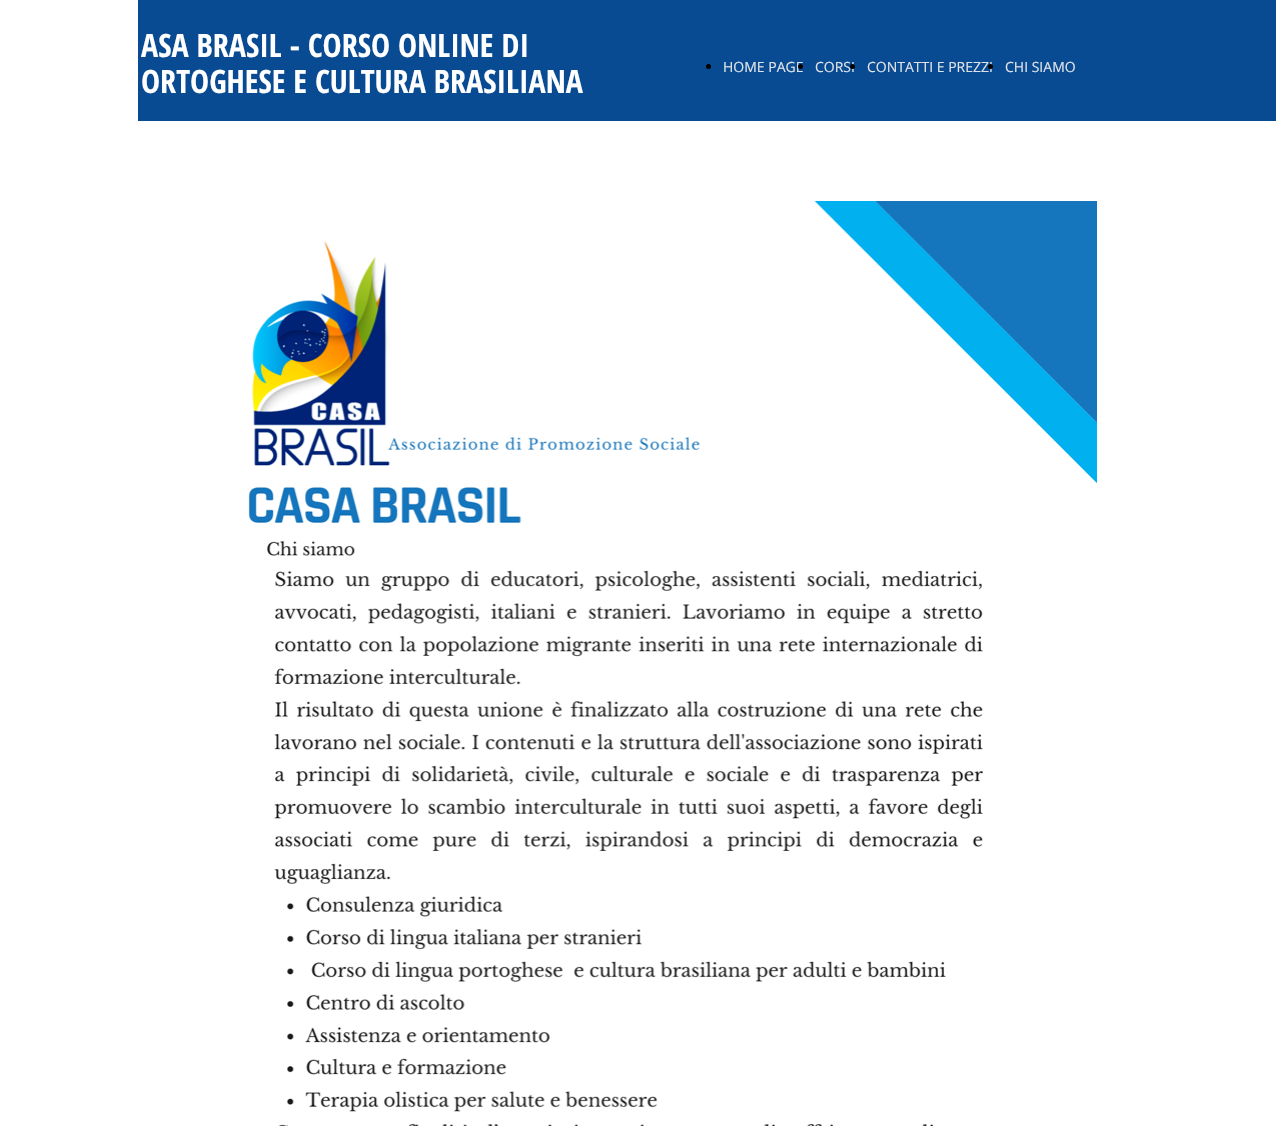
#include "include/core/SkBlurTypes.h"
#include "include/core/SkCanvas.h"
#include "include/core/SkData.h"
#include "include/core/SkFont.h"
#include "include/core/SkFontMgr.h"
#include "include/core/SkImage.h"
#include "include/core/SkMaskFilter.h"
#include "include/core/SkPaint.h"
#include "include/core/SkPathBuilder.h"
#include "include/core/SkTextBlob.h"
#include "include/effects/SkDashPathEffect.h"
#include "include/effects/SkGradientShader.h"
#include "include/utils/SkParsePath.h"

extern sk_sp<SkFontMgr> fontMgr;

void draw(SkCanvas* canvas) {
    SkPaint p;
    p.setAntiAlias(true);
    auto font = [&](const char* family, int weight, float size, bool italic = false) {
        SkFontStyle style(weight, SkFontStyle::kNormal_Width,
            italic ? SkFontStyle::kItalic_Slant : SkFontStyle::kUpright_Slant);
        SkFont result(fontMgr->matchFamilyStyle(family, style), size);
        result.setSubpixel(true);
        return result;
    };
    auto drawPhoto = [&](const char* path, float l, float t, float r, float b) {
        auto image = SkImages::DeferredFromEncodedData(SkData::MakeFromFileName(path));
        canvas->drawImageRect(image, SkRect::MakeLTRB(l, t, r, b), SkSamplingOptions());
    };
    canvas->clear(0xFFFFFFFF);
    p.setColor(0xFF094B92);
    canvas->drawRect(SkRect::MakeLTRB(138, 0, 1276, 121), p);
    auto font1 = font("Open Sans Condensed", 700, 32.1f);
    p.setColor(0xFFFFFFFF);
    canvas->drawString("ASA BRASIL - CORSO ONLINE DI", 141, 57, font1, p);
    canvas->drawString("ORTOGHESE E CULTURA BRASILIANA", 141, 93, font1, p);
    p.setColor(0xFF000000);
    canvas->drawCircle(708.5f, 66.5f, 2.5f, p);
    auto font2 = font("Open Sans", 400, 14);
    p.setColor(0xFFDFE3E7);
    canvas->drawString("HOME PAGE", 723, 72, font2, p);
    p.setColor(0xFF000000);
    canvas->drawCircle(800.5f, 66.5f, 2.5f, p);
    p.setColor(0xFFDFE3E7);
    canvas->drawString("CORSI", 815, 72, font2, p);
    p.setColor(0xFF000000);
    canvas->drawCircle(852.5f, 66.5f, 2.5f, p);
    p.setColor(0xFFDFE3E7);
    canvas->drawString("CONTATTI E PREZZI", 867, 72, font2, p);
    p.setColor(0xFF000000);
    canvas->drawCircle(990.5f, 66.5f, 2.5f, p);
    p.setColor(0xFFDFE3E7);
    canvas->drawString("CHI SIAMO", 1005, 72, font2, p);
    drawPhoto("media/1.png", 248, 201, 1097, 1126);
}
